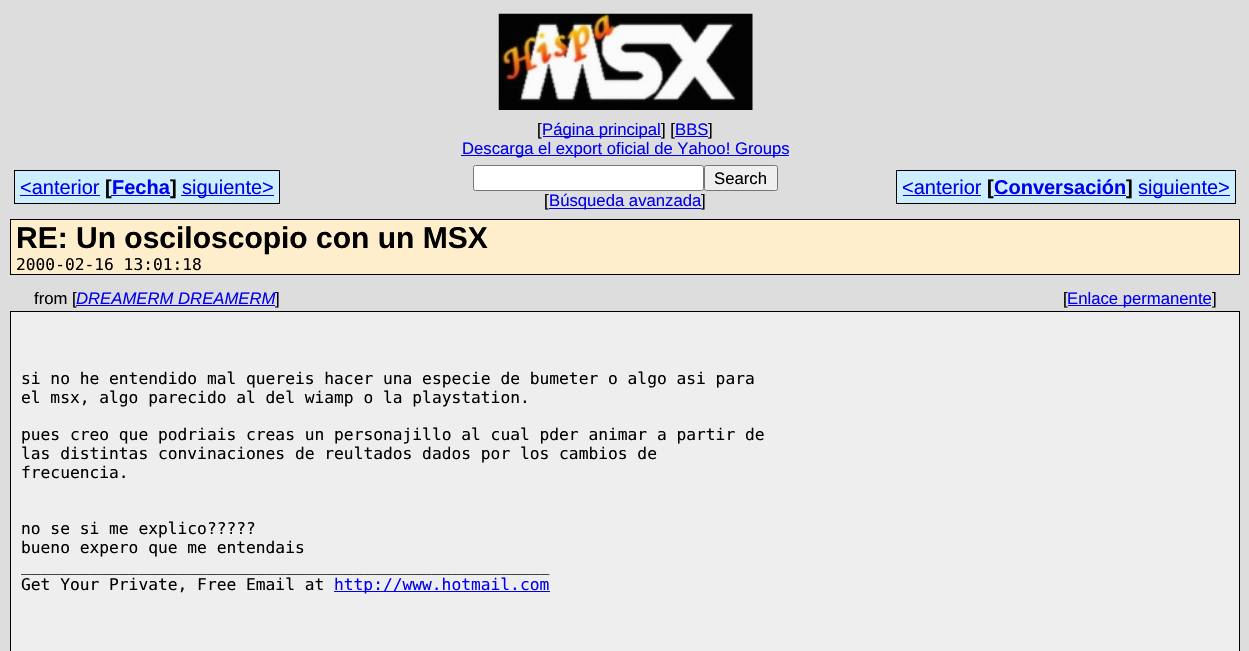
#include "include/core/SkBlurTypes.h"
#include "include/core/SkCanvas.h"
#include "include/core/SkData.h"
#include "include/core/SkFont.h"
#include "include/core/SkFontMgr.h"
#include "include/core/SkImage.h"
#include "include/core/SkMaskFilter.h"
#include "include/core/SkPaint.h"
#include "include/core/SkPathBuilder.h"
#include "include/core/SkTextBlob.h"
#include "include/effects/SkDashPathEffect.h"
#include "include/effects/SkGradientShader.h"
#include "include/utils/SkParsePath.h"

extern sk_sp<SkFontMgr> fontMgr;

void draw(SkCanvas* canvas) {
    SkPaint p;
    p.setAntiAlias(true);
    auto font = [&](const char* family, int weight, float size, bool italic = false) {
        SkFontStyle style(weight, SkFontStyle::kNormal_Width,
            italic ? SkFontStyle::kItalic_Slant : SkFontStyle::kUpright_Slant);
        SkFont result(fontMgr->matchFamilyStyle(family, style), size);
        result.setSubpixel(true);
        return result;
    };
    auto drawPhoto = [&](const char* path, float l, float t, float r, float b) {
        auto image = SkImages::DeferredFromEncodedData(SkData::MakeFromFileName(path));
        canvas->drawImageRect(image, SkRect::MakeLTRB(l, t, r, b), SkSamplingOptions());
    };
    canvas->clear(0xFFDDDDDD);
    drawPhoto("media/1.png", 498, 13, 753, 110);
    auto font1 = font("Liberation Sans", 400, 16.7f);
    p.setColor(0xFF000000);
    canvas->drawString("[", 537, 135, font1, p);
    p.setColor(0xFF0000EE);
    canvas->drawRect(SkRect::MakeLTRB(543, 136, 661, 137), p);
    canvas->drawString("Página principal", 542, 135, font1, p);
    p.setColor(0xFF000000);
    canvas->drawString("] [", 661, 135, font1, p);
    p.setColor(0xFF0000EE);
    canvas->drawString("BBS", 675, 135, font1, p);
    p.setColor(0xFF000000);
    canvas->drawString("]", 708, 135, font1, p);
    p.setColor(0xFF0000EE);
    canvas->drawRect(SkRect::MakeLTRB(675, 136, 708, 137), p);
    canvas->drawRect(SkRect::MakeLTRB(461, 155, 789, 156), p);
    canvas->drawString("Descarga el export oficial de Yahoo! Groups", 462, 154, font1, p);
    p.setColor(0xFFCCEEFF);
    canvas->drawRect(SkRect::MakeLTRB(15, 171, 100, 203), p);
    auto font2 = font("Liberation Sans", 400, 20);
    p.setColor(0xFF0000EE);
    canvas->drawString("<anterior", 20, 194, font2, p);
    {
        const struct { float l, t, r, b; SkColor color; } items[] = {
            {14, 170, 100, 171, 0xFF000000},
            {14, 203, 100, 204, 0xFF000000},
            {14, 170, 15, 204, 0xFF000000},
            {100, 170, 111, 204, 0xFFCCEEFF},
            {100, 170, 170, 171, 0xFF000000},
            {20, 195, 100, 196, 0xFF0000EE},
            {111, 171, 170, 203, 0xFFCCEEFF},
        };
        for (auto [l, t, r, b, color] : items) {
            p.setColor(color);
            canvas->drawRect(SkRect::MakeLTRB(l, t, r, b), p);
        }
    }
    auto font3 = font("Liberation Sans", 700, 20);
    p.setColor(0xFF000000);
    canvas->drawString("[", 105, 194, font3, p);
    canvas->drawRect(SkRect::MakeLTRB(100, 203, 170, 204), p);
    p.setColor(0xFF0000EE);
    canvas->drawRect(SkRect::MakeLTRB(111, 195, 170, 196), p);
    canvas->drawString("Fecha", 112, 194, font3, p);
    p.setColor(0xFFCCEEFF);
    canvas->drawRect(SkRect::MakeLTRB(170, 170, 181, 204), p);
    p.setColor(0xFF000000);
    canvas->drawRect(SkRect::MakeLTRB(170, 170, 280, 171), p);
    canvas->drawString("]", 170, 194, font3, p);
    {
        const struct { float l, t, r, b; SkColor color; } items[] = {
            {170, 203, 181, 204, 0xFF000000},
            {181, 171, 279, 203, 0xFFCCEEFF},
            {181, 195, 274, 196, 0xFF0000EE},
        };
        for (auto [l, t, r, b, color] : items) {
            p.setColor(color);
            canvas->drawRect(SkRect::MakeLTRB(l, t, r, b), p);
        }
    }
    canvas->drawString("siguiente>", 182, 194, font2, p);
    p.setColor(0xFF000000);
    canvas->drawRect(SkRect::MakeLTRB(279, 170, 280, 204), p);
    canvas->drawRect(SkRect::MakeLTRB(181, 203, 280, 204), p);
    p.setColor(0xFFFFFFFF);
    canvas->drawRoundRect(SkRect::MakeLTRB(473.5f, 165.5f, 703.5f, 190.5f), 2, 2, p);
    p.setStyle(SkPaint::kStroke_Style);
    p.setStrokeWidth(1);
    p.setColor(0xFF767676);
    canvas->drawRoundRect(SkRect::MakeLTRB(473.5f, 165.5f, 703.5f, 190.5f), 2, 2, p);
    p.setStyle(SkPaint::kFill_Style);
    p.setColor(0xFFEFEFEF);
    canvas->drawRoundRect(SkRect::MakeLTRB(704.5f, 165.5f, 777.5f, 190.5f), 2, 2, p);
    p.setStyle(SkPaint::kStroke_Style);
    p.setColor(0xFF767676);
    canvas->drawRoundRect(SkRect::MakeLTRB(704.5f, 165.5f, 777.5f, 190.5f), 2, 2, p);
    p.setStyle(SkPaint::kFill_Style);
    p.setColor(0xFF000000);
    canvas->drawString("Search", 714, 184, font1, p);
    canvas->drawString("[", 544, 206, font1, p);
    p.setColor(0xFF0000EE);
    canvas->drawRect(SkRect::MakeLTRB(549, 208, 701, 209), p);
    canvas->drawString("Búsqueda avanzada", 549, 206, font1, p);
    p.setColor(0xFF000000);
    canvas->drawString("]", 701, 206, font1, p);
    p.setColor(0xFFCCEEFF);
    canvas->drawRect(SkRect::MakeLTRB(897, 171, 981, 203), p);
    canvas->drawRect(SkRect::MakeLTRB(981, 170, 994, 204), p);
    p.setColor(0xFF0000EE);
    canvas->drawString("<anterior", 902, 194, font2, p);
    {
        const struct { float l, t, r, b; SkColor color; } items[] = {
            {896, 170, 981, 171, 0xFF000000},
            {896, 203, 981, 204, 0xFF000000},
            {896, 170, 897, 204, 0xFF000000},
            {981, 170, 1126, 171, 0xFF000000},
            {903, 195, 981, 196, 0xFF0000EE},
        };
        for (auto [l, t, r, b, color] : items) {
            p.setColor(color);
            canvas->drawRect(SkRect::MakeLTRB(l, t, r, b), p);
        }
    }
    p.setColor(0xFF000000);
    canvas->drawString("[", 987, 194, font3, p);
    {
        const struct { float l, t, r, b; SkColor color; } items[] = {
            {981, 203, 1126, 204, 0xFF000000},
            {994, 171, 1126, 203, 0xFFCCEEFF},
            {994, 195, 1126, 196, 0xFF0000EE},
        };
        for (auto [l, t, r, b, color] : items) {
            p.setColor(color);
            canvas->drawRect(SkRect::MakeLTRB(l, t, r, b), p);
        }
    }
    canvas->drawString("Conversación", 994, 194, font3, p);
    p.setColor(0xFFCCEEFF);
    canvas->drawRect(SkRect::MakeLTRB(1126, 170, 1139, 204), p);
    p.setColor(0xFF000000);
    canvas->drawRect(SkRect::MakeLTRB(1126, 170, 1236, 171), p);
    canvas->drawString("]", 1126, 194, font3, p);
    {
        const struct { float l, t, r, b; SkColor color; } items[] = {
            {1126, 203, 1139, 204, 0xFF000000},
            {1139, 171, 1235, 203, 0xFFCCEEFF},
            {1139, 195, 1230, 196, 0xFF0000EE},
        };
        for (auto [l, t, r, b, color] : items) {
            p.setColor(color);
            canvas->drawRect(SkRect::MakeLTRB(l, t, r, b), p);
        }
    }
    canvas->drawString("siguiente>", 1138, 194, font2, p);
    p.setColor(0xFF000000);
    canvas->drawRect(SkRect::MakeLTRB(1235, 170, 1236, 204), p);
    canvas->drawRect(SkRect::MakeLTRB(1139, 203, 1236, 204), p);
    p.setColor(0xFFFFEECC);
    canvas->drawRect(SkRect::MakeLTRB(10.5f, 219.5f, 1239.5f, 274.5f), p);
    p.setStyle(SkPaint::kStroke_Style);
    p.setColor(0xFF000000);
    canvas->drawRect(SkRect::MakeLTRB(10.5f, 219.5f, 1239.5f, 274.5f), p);
    auto font4 = font("Liberation Sans", 700, 30);
    p.setStyle(SkPaint::kFill_Style);
    canvas->drawString("RE: Un osciloscopio con un MSX", 16, 248, font4, p);
    auto font5 = font("DejaVu Sans Mono", 400, 16.25f);
    canvas->drawString("2000-02-16 13:01:18", 16, 270, font5, p);
    canvas->drawString("from [", 34, 304, font1, p);
    p.setColor(0xFF0000EE);
    canvas->drawRect(SkRect::MakeLTRB(76, 305, 275, 306), p);
    auto font6 = font("Liberation Sans", 400, 16.7f, true);
    canvas->drawString("DREAMERM DREAMERM", 76, 304, font6, p);
    p.setColor(0xFF000000);
    canvas->drawString("]", 275, 304, font1, p);
    canvas->drawString("[", 1063, 304, font1, p);
    p.setColor(0xFF0000EE);
    canvas->drawRect(SkRect::MakeLTRB(1068, 305, 1211, 306), p);
    canvas->drawString("Enlace permanente", 1067, 304, font1, p);
    p.setColor(0xFF000000);
    canvas->drawString("]", 1212, 304, font1, p);
    p.setColor(0xFFEEEEEE);
    canvas->drawRect(SkRect::MakeLTRB(10.5f, 311.5f, 1239.5f, 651.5f), p);
    p.setStyle(SkPaint::kStroke_Style);
    p.setColor(0xFF000000);
    canvas->drawRect(SkRect::MakeLTRB(10.5f, 311.5f, 1239.5f, 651.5f), p);
    p.setStyle(SkPaint::kFill_Style);
    {
        const struct { const char* s; float x, y; } items[] = {
            {"si no he entendido mal quereis hacer una especie de bumeter o algo asi para", 21, 384},
            {"el msx, algo parecido al del wiamp o la playstation.", 21, 403},
            {"pues creo que podriais creas un personajillo al cual pder animar a partir de", 21, 440},
            {"las distintas convinaciones de reultados dados por los cambios de", 21, 459},
            {"frecuencia.", 21, 478},
            {"no se si me explico?\077?\077?", 21, 534},
            {"bueno expero que me entendais", 21, 553},
            {"______________________________________________________", 21, 571},
            {"Get Your Private, Free Email at", 21, 590},
        };
        for (auto [s, x, y] : items) {
            canvas->drawString(s, x, y, font5, p);
        }
    }
    p.setColor(0xFF0000EE);
    canvas->drawRect(SkRect::MakeLTRB(334, 591, 550, 592), p);
    canvas->drawString("http://www.hotmail.com", 334, 590, font5, p);
}
